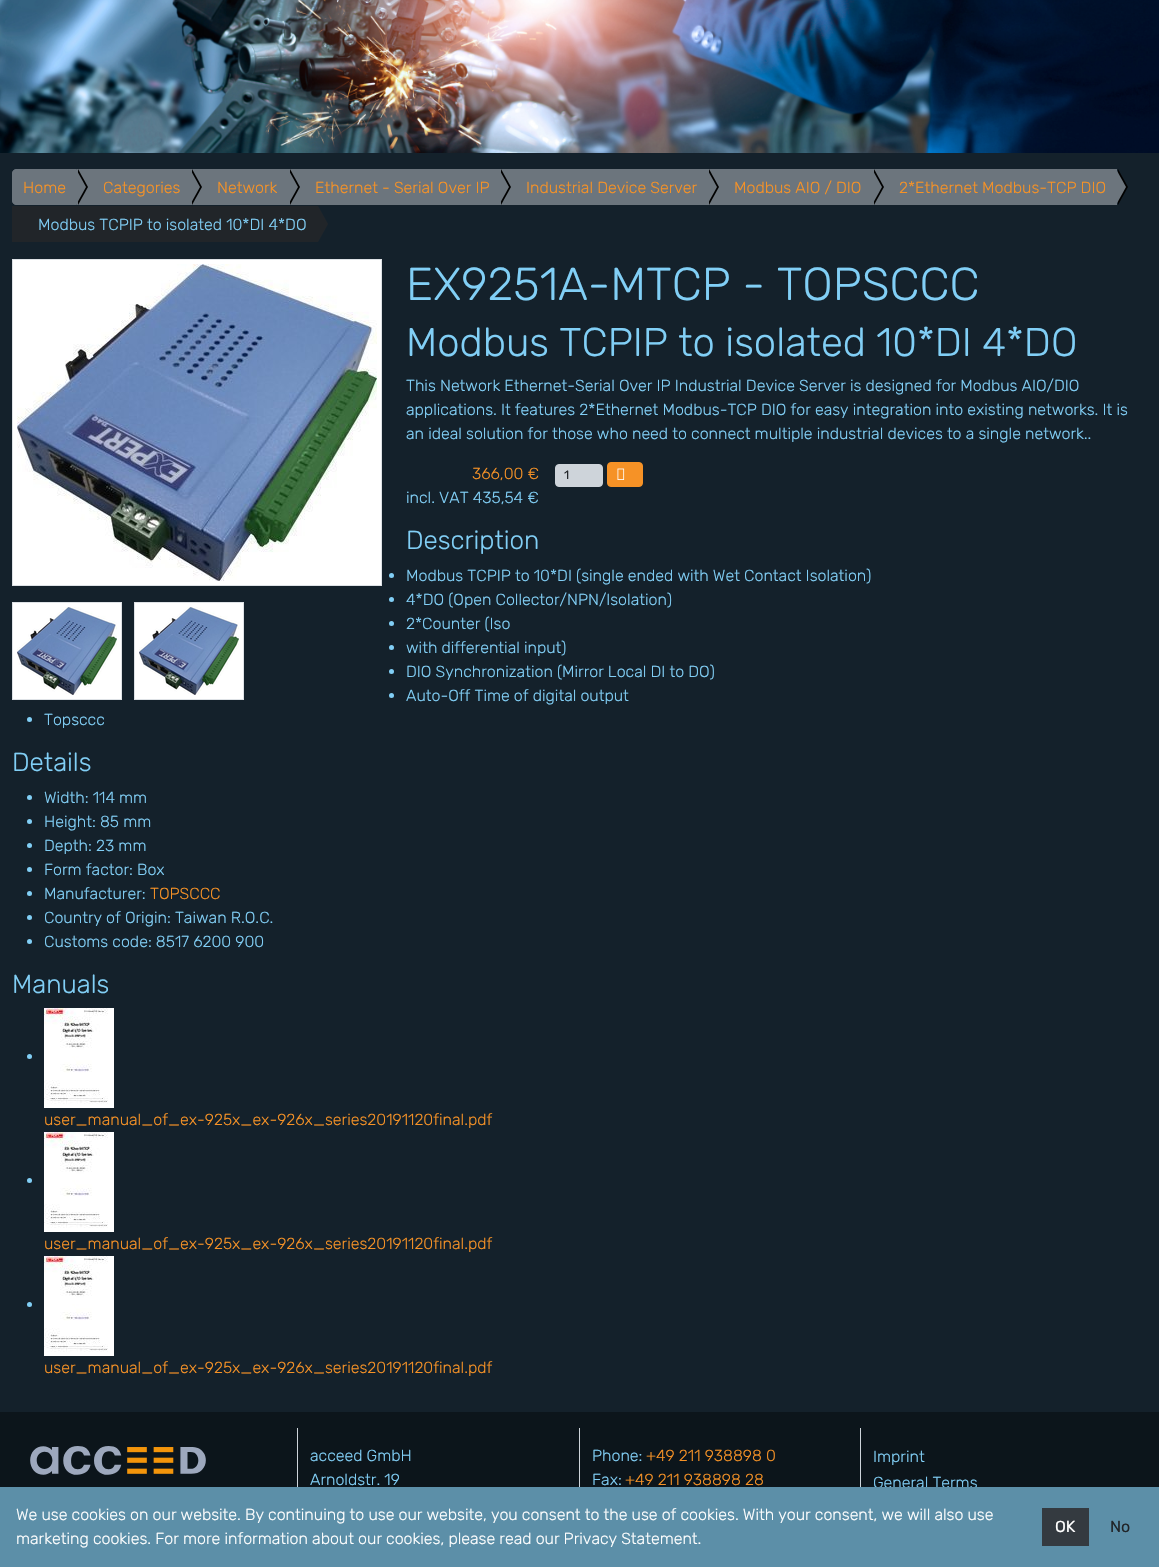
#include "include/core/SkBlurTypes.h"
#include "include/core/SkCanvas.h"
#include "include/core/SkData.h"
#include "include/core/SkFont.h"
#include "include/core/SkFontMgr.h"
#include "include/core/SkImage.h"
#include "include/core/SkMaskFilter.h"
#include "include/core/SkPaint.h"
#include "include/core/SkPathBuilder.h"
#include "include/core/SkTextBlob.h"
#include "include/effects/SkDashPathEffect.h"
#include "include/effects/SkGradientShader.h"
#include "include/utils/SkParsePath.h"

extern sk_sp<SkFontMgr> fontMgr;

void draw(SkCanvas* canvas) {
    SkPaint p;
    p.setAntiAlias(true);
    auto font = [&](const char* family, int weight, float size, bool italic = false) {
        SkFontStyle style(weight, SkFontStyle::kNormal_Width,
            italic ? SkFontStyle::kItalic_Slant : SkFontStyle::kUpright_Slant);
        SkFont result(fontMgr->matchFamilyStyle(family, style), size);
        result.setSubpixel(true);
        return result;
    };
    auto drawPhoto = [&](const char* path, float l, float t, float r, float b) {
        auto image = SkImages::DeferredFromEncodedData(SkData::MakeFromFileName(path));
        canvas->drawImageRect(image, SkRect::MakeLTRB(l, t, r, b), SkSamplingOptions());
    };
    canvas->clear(0xFF14212B);
    drawPhoto("media/1.png", 0, 0, 1159, 153);
    p.setColor(0xFF6C757D);
    canvas->drawPath(SkPathBuilder().moveTo(16, 169.5f).lineTo(76.5f, 169.5f).lineTo(76.5f, 204.5f).lineTo(16, 204.5f).cubicTo(14, 204.5f, 12.5f, 203, 12.5f, 201).lineTo(12.5f, 173).cubicTo(12.5f, 171, 14, 169.5f, 16, 169.5f).close().detach(), p);
    p.setStyle(SkPaint::kStroke_Style);
    p.setStrokeWidth(1);
    canvas->drawPath(SkPathBuilder().moveTo(16, 169.5f).lineTo(76.5f, 169.5f).lineTo(76.5f, 204.5f).lineTo(16, 204.5f).cubicTo(14, 204.5f, 12.5f, 203, 12.5f, 201).lineTo(12.5f, 173).cubicTo(12.5f, 171, 14, 169.5f, 16, 169.5f).close().detach(), p);
    p.setStyle(SkPaint::kFill_Style);
    canvas->drawRect(SkRect::MakeLTRB(77, 169, 1117, 205), p);
    p.setColor(0xFF000000);
    canvas->drawPath(SkPathBuilder().moveTo(78, 205).lineTo(78, 169).lineTo(88, 187).close().detach(), p);
    p.setColor(0xFF6C757D);
    canvas->drawPath(SkPathBuilder().moveTo(76, 205).lineTo(76, 169).lineTo(86, 187).close().detach(), p);
    auto font1 = font("Rubik", 300, 16);
    p.setColor(0xFFF69226);
    canvas->drawString("Home", 23, 193, font1, p);
    p.setColor(0xFF000000);
    canvas->drawPath(SkPathBuilder().moveTo(192, 205).lineTo(192, 169).lineTo(202, 187).close().detach(), p);
    p.setColor(0xFF6C757D);
    canvas->drawPath(SkPathBuilder().moveTo(190, 205).lineTo(190, 169).lineTo(200, 187).close().detach(), p);
    p.setColor(0xFFF69226);
    canvas->drawString("Categories", 103, 193, font1, p);
    p.setColor(0xFF000000);
    canvas->drawPath(SkPathBuilder().moveTo(290, 205).lineTo(290, 169).lineTo(300, 187).close().detach(), p);
    p.setColor(0xFF6C757D);
    canvas->drawPath(SkPathBuilder().moveTo(288, 205).lineTo(288, 169).lineTo(298, 187).close().detach(), p);
    p.setColor(0xFFF69226);
    canvas->drawString("Network", 217, 193, font1, p);
    p.setColor(0xFF000000);
    canvas->drawPath(SkPathBuilder().moveTo(501, 205).lineTo(501, 169).lineTo(511, 187).close().detach(), p);
    p.setColor(0xFF6C757D);
    canvas->drawPath(SkPathBuilder().moveTo(499, 205).lineTo(499, 169).lineTo(509, 187).close().detach(), p);
    p.setColor(0xFFF69226);
    canvas->drawString("Ethernet - Serial Over IP", 315, 193, font1, p);
    p.setColor(0xFF000000);
    canvas->drawPath(SkPathBuilder().moveTo(709, 205).lineTo(709, 169).lineTo(719, 187).close().detach(), p);
    p.setColor(0xFF6C757D);
    canvas->drawPath(SkPathBuilder().moveTo(707, 205).lineTo(707, 169).lineTo(717, 187).close().detach(), p);
    p.setColor(0xFFF69226);
    canvas->drawString("Industrial Device Server", 526, 193, font1, p);
    p.setColor(0xFF000000);
    canvas->drawPath(SkPathBuilder().moveTo(874, 205).lineTo(874, 169).lineTo(884, 187).close().detach(), p);
    p.setColor(0xFF6C757D);
    canvas->drawPath(SkPathBuilder().moveTo(872, 205).lineTo(872, 169).lineTo(882, 187).close().detach(), p);
    p.setColor(0xFFF69226);
    canvas->drawString("Modbus AIO / DIO", 734, 193, font1, p);
    p.setColor(0xFF000000);
    canvas->drawPath(SkPathBuilder().moveTo(1118, 205).lineTo(1118, 169).lineTo(1128, 187).close().detach(), p);
    p.setColor(0xFF6C757D);
    canvas->drawPath(SkPathBuilder().moveTo(1116, 205).lineTo(1116, 169).lineTo(1126, 187).close().detach(), p);
    p.setColor(0xFFF69226);
    canvas->drawString("2*Ethernet Modbus-TCP DIO", 899, 193, font1, p);
    p.setColor(0xFF212529);
    canvas->drawRect(SkRect::MakeLTRB(12, 206, 318, 242), p);
    p.setColor(0xFF81CFF6);
    canvas->drawString("Modbus TCPIP to isolated 10*DI 4*DO", 38, 230, font1, p);
    p.setColor(0xFF212529);
    canvas->drawPath(SkPathBuilder().moveTo(318, 242).lineTo(318, 206).lineTo(328, 224).close().detach(), p);
    p.setColor(0xFFFFFFFF);
    canvas->drawRect(SkRect::MakeLTRB(12.5f, 259.5f, 381.5f, 585.5f), p);
    p.setStyle(SkPaint::kStroke_Style);
    p.setColor(0xFFDEE2E6);
    canvas->drawRect(SkRect::MakeLTRB(12.5f, 259.5f, 381.5f, 585.5f), p);
    drawPhoto("media/2.png", 17, 264, 377, 581);
    p.setStyle(SkPaint::kFill_Style);
    p.setColor(0xFFFFFFFF);
    canvas->drawRect(SkRect::MakeLTRB(12.5f, 602.5f, 121.5f, 699.5f), p);
    p.setStyle(SkPaint::kStroke_Style);
    p.setColor(0xFFDEE2E6);
    canvas->drawRect(SkRect::MakeLTRB(12.5f, 602.5f, 121.5f, 699.5f), p);
    p.setStyle(SkPaint::kFill_Style);
    p.setColor(0xFFFFFFFF);
    canvas->drawRect(SkRect::MakeLTRB(134.5f, 602.5f, 243.5f, 699.5f), p);
    p.setStyle(SkPaint::kStroke_Style);
    p.setColor(0xFFDEE2E6);
    canvas->drawRect(SkRect::MakeLTRB(134.5f, 602.5f, 243.5f, 699.5f), p);
    drawPhoto("media/3.png", 17, 607, 117, 695);
    drawPhoto("media/3.png", 139, 607, 239, 695);
    auto font2 = font("Rubik", 300, 46);
    p.setStyle(SkPaint::kFill_Style);
    p.setColor(0xFF81CFF6);
    canvas->drawString("EX9251A-MTCP - TOPSCCC", 406, 300, font2, p);
    auto font3 = font("Rubik", 300, 40);
    canvas->drawString("Modbus TCPIP to isolated 10*DI 4*DO", 406, 356, font3, p);
    {
        const struct { const char* s; float x, y; } items[] = {
            {"This Network Ethernet-Serial Over IP Industrial Device Server is designed for Modbus AIO/DIO", 406, 391},
            {"applications. It features 2*Ethernet Modbus-TCP DIO for easy integration into existing networks. It is", 406, 415},
            {"an ideal solution for those who need to connect multiple industrial devices to a single network..", 406, 439},
        };
        for (auto [s, x, y] : items) {
            canvas->drawString(s, x, y, font1, p);
        }
    }
    p.setColor(0xFFF69226);
    canvas->drawString("366,00 €", 472, 479, font1, p);
    p.setColor(0xFF81CFF6);
    canvas->drawString("incl. VAT 435,54 €", 406, 503, font1, p);
    p.setColor(0xFFCED4DA);
    canvas->drawRoundRect(SkRect::MakeLTRB(555.5f, 464.5f, 602.5f, 486.5f), 3.5f, 3.5f, p);
    p.setStyle(SkPaint::kStroke_Style);
    canvas->drawRoundRect(SkRect::MakeLTRB(555.5f, 464.5f, 602.5f, 486.5f), 3.5f, 3.5f, p);
    auto font4 = font("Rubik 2", 300, 12);
    p.setStyle(SkPaint::kFill_Style);
    p.setColor(0xFF212529);
    canvas->drawString("1", 564, 479, font4, p);
    p.setColor(0xFFF69226);
    canvas->drawRoundRect(SkRect::MakeLTRB(607.5f, 462.5f, 642.5f, 486.5f), 3.5f, 3.5f, p);
    p.setStyle(SkPaint::kStroke_Style);
    canvas->drawRoundRect(SkRect::MakeLTRB(607.5f, 462.5f, 642.5f, 486.5f), 3.5f, 3.5f, p);
    drawPhoto("media/4.png", 617, 468, 625, 480);
    auto font5 = font("Rubik", 300, 26);
    p.setStyle(SkPaint::kFill_Style);
    p.setColor(0xFF81CFF6);
    canvas->drawString("Description", 406, 549, font5, p);
    canvas->drawCircle(391.5f, 575.5f, 2.5f, p);
    canvas->drawString("Modbus TCPIP to 10*DI (single ended with Wet Contact Isolation)", 406, 581, font1, p);
    canvas->drawCircle(391.5f, 599.5f, 2.5f, p);
    canvas->drawString("4*DO (Open Collector/NPN/Isolation)", 406, 605, font1, p);
    canvas->drawCircle(391.5f, 623.5f, 2.5f, p);
    canvas->drawString("2*Counter (Iso", 406, 629, font1, p);
    canvas->drawCircle(391.5f, 647.5f, 2.5f, p);
    canvas->drawString("with differential input)", 406, 653, font1, p);
    canvas->drawCircle(391.5f, 671.5f, 2.5f, p);
    canvas->drawString("DIO Synchronization (Mirror Local DI to DO)", 406, 677, font1, p);
    canvas->drawCircle(391.5f, 695.5f, 2.5f, p);
    canvas->drawString("Auto-Off Time of digital output", 406, 701, font1, p);
    canvas->drawCircle(29.5f, 719.5f, 2.5f, p);
    canvas->drawString("Topsccc", 44, 725, font1, p);
    canvas->drawString("Details", 12, 771, font5, p);
    canvas->drawCircle(29.5f, 797.5f, 2.5f, p);
    canvas->drawString("Width: 114 mm", 44, 803, font1, p);
    canvas->drawCircle(29.5f, 821.5f, 2.5f, p);
    canvas->drawString("Height: 85 mm", 44, 827, font1, p);
    canvas->drawCircle(29.5f, 845.5f, 2.5f, p);
    canvas->drawString("Depth: 23 mm", 44, 851, font1, p);
    canvas->drawCircle(29.5f, 869.5f, 2.5f, p);
    canvas->drawString("Form factor: Box", 44, 875, font1, p);
    canvas->drawCircle(29.5f, 893.5f, 2.5f, p);
    canvas->drawString("Manufacturer:", 44, 899, font1, p);
    p.setColor(0xFFF69226);
    canvas->drawString("TOPSCCC", 150, 899, font1, p);
    p.setColor(0xFF81CFF6);
    canvas->drawCircle(29.5f, 917.5f, 2.5f, p);
    canvas->drawString("Country of Origin: Taiwan R.O.C.", 44, 923, font1, p);
    canvas->drawCircle(29.5f, 941.5f, 2.5f, p);
    canvas->drawString("Customs code: 8517 6200 900", 44, 947, font1, p);
    canvas->drawString("Manuals", 12, 993, font5, p);
    canvas->drawCircle(29.5f, 1056.5f, 2.5f, p);
    drawPhoto("media/5.png", 44, 1008, 114, 1108);
    p.setColor(0xFFF69226);
    canvas->drawString("user_manual_of_ex-925x_ex-926x_series20191120final.pdf", 44, 1125, font1, p);
    p.setColor(0xFF81CFF6);
    canvas->drawCircle(29.5f, 1180.5f, 2.5f, p);
    drawPhoto("media/5.png", 44, 1132, 114, 1232);
    p.setColor(0xFFF69226);
    canvas->drawString("user_manual_of_ex-925x_ex-926x_series20191120final.pdf", 44, 1249, font1, p);
    p.setColor(0xFF81CFF6);
    canvas->drawCircle(29.5f, 1304.5f, 2.5f, p);
    drawPhoto("media/5.png", 44, 1256, 114, 1356);
    p.setColor(0xFFF69226);
    canvas->drawString("user_manual_of_ex-925x_ex-926x_series20191120final.pdf", 44, 1373, font1, p);
    p.setColor(0xFF0C151B);
    canvas->drawRect(SkRect::MakeLTRB(0, 1412, 1159, 1487), p);
    p.setColor(0xFFCED4DA);
    canvas->drawRect(SkRect::MakeLTRB(297, 1428, 298, 1487), p);
    drawPhoto("media/6.png", 30, 1446, 206, 1475);
    canvas->drawRect(SkRect::MakeLTRB(579, 1428, 580, 1487), p);
    p.setColor(0xFF81CFF6);
    canvas->drawString("acceed GmbH", 310, 1461, font1, p);
    canvas->drawString("Arnoldstr. 19", 310, 1485, font1, p);
    p.setColor(0xFFCED4DA);
    canvas->drawRect(SkRect::MakeLTRB(860, 1428, 861, 1487), p);
    p.setColor(0xFF81CFF6);
    canvas->drawString("Phone:", 592, 1461, font1, p);
    p.setColor(0xFFF69226);
    canvas->drawString("+49 211 938898 0", 646, 1461, font1, p);
    p.setColor(0xFF81CFF6);
    canvas->drawString("Fax:", 592, 1485, font1, p);
    p.setColor(0xFFF69226);
    canvas->drawString("+49 211 938898 28", 625, 1485, font1, p);
    p.setColor(0xFF81CFF6);
    canvas->drawString("Imprint", 873, 1462, font1, p);
    canvas->drawString("General Terms", 873, 1488, font1, p);
    p.setColor(0xFF5C8FA8);
    canvas->drawRect(SkRect::MakeLTRB(0, 1487, 1159, 1567), p);
    p.setColor(0xFFFFFFFF);
    canvas->drawString("We use cookies on our website. By continuing to use our website, you consent to the use of cookies. With your consent, we will also use", 16, 1520, font1, p);
    canvas->drawString("marketing cookies. For more information about our cookies, please read our Privacy Statement.", 16, 1544, font1, p);
    p.setColor(0xFF343A40);
    canvas->drawRect(SkRect::MakeLTRB(1042, 1508, 1089, 1546), p);
    auto font6 = font("Rubik 2", 300, 16);
    p.setColor(0xFFFFFFFF);
    canvas->drawString("OK", 1055, 1532, font6, p);
    p.setColor(0xFF212529);
    canvas->drawString("No", 1110, 1532, font6, p);
}
